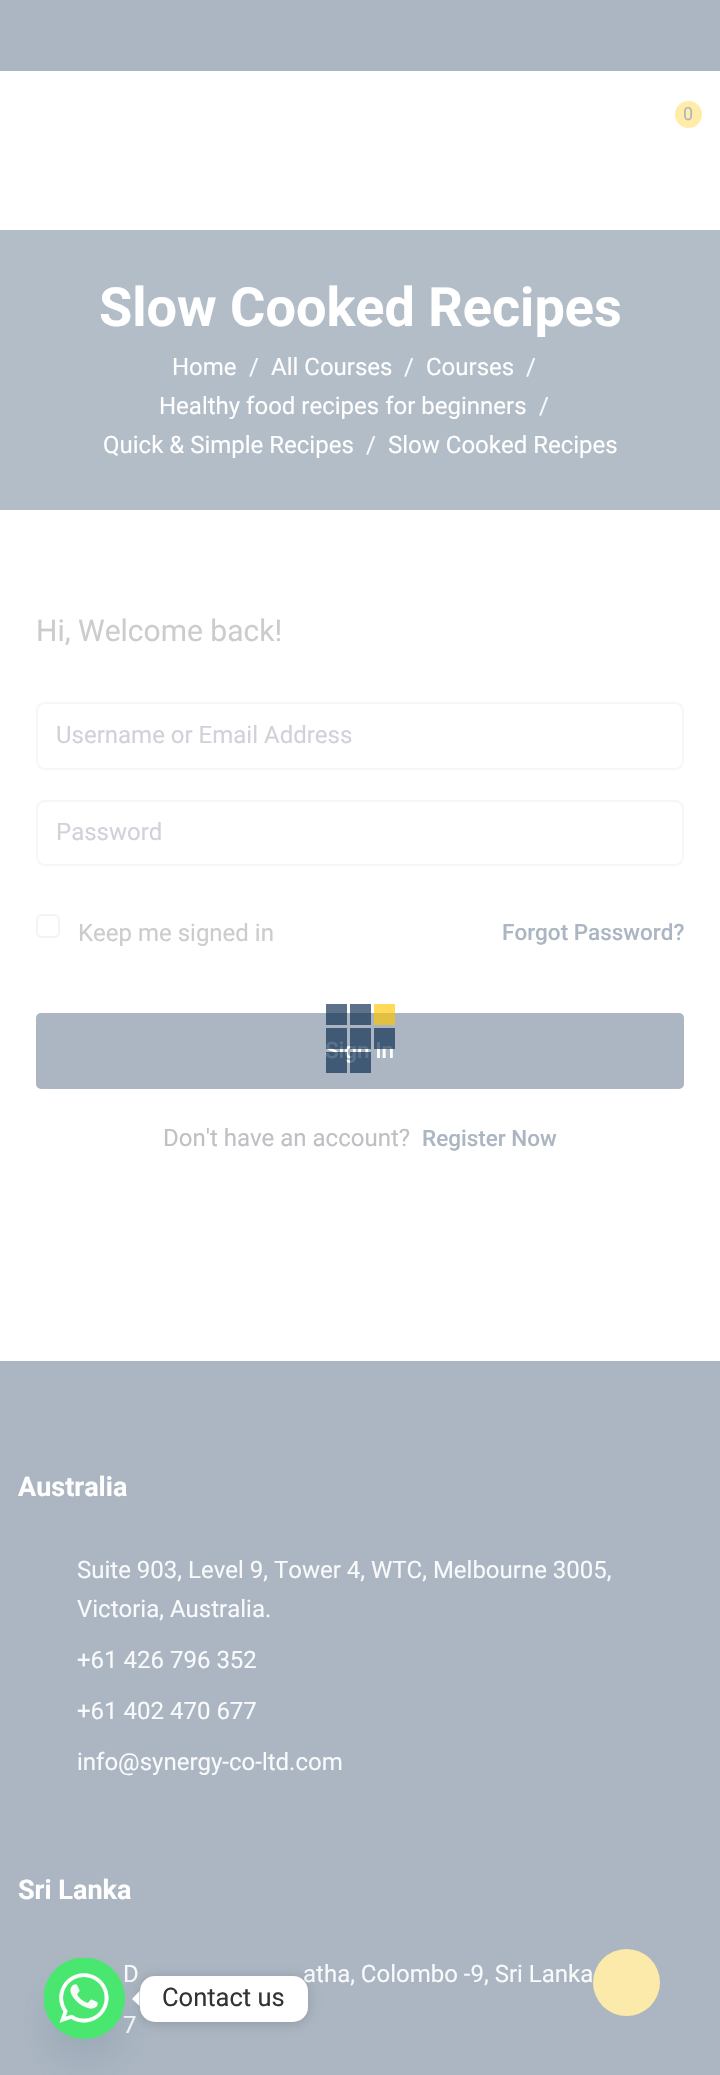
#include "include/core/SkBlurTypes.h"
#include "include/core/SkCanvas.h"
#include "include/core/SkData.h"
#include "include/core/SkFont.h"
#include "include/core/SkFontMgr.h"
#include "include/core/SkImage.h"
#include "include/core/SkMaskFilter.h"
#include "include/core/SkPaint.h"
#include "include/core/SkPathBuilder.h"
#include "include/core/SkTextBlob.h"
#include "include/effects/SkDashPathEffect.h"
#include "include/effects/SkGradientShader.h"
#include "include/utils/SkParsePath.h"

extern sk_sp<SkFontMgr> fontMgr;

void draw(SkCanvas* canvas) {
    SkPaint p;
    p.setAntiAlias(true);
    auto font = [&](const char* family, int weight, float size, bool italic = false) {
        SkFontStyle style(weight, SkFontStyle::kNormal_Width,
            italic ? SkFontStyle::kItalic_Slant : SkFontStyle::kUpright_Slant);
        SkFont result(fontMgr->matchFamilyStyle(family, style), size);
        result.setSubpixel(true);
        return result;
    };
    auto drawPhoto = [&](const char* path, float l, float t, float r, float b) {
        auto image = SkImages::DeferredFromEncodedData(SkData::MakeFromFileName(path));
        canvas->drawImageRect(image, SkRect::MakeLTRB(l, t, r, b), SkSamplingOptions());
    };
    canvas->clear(0xFFFFFFFF);
    {
        const struct { float l, t, r, b; SkColor color; } items[] = {
            {374, 1004, 395, 1013, 0xFFFFD957},
            {350, 1004, 371, 1013, 0xFF5B728A},
            {326, 1004, 347, 1013, 0xFF5B728A},
            {0, 0, 720, 71, 0xFFABB6C2},
        };
        for (auto [l, t, r, b, color] : items) {
            p.setColor(color);
            canvas->drawRect(SkRect::MakeLTRB(l, t, r, b), p);
        }
    }
    p.setColor(0xFFFFECA8);
    canvas->drawCircle(688.5f, 114.5f, 13.5f, p);
    auto font1 = font("Roboto", 400, 18);
    p.setColor(0xFFABB6C2);
    canvas->drawString("0", 683, 120, font1, p);
    p.setColor(0xE6ABB6C2);
    canvas->drawRect(SkRect::MakeLTRB(0, 230, 720, 510), p);
    auto font2 = font("Roboto", 700, 54);
    p.setColor(0xFFFFFFFF);
    canvas->drawString("Slow Cooked Recipes", 99, 326, font2, p);
    auto font3 = font("Roboto", 400, 24);
    canvas->drawString("Home", 172, 375, font3, p);
    p.setColor(0xFFF9FAFB);
    canvas->drawString("/", 249, 375, font3, p);
    p.setColor(0xFFFFFFFF);
    canvas->drawString("All Courses", 271, 375, font3, p);
    p.setColor(0xFFF9FAFB);
    canvas->drawString("/", 404, 375, font3, p);
    p.setColor(0xFFFFFFFF);
    canvas->drawString("Courses", 426, 375, font3, p);
    p.setColor(0xFFF9FAFB);
    canvas->drawString("/", 526, 375, font3, p);
    p.setColor(0xFFFFFFFF);
    canvas->drawString("Healthy food recipes for beginners", 159, 414, font3, p);
    p.setColor(0xFFF9FAFB);
    canvas->drawString("/", 539, 414, font3, p);
    p.setColor(0xFFFFFFFF);
    canvas->drawString("Quick & Simple Recipes", 103, 453, font3, p);
    p.setColor(0xFFF9FAFB);
    canvas->drawString("/", 366, 453, font3, p);
    p.setColor(0xFFFFFFFF);
    canvas->drawString("Slow Cooked Recipes", 388, 453, font3, p);
    auto font4 = font("Roboto", 400, 30);
    p.setColor(0xFFCCCCCC);
    canvas->drawString("Hi, Welcome back!", 36, 641, font4, p);
    p.setStyle(SkPaint::kStroke_Style);
    p.setStrokeWidth(2);
    p.setColor(0xFFF5F6F8);
    canvas->drawRoundRect(SkRect::MakeLTRB(37, 703, 683, 769), 8, 8, p);
    p.setStyle(SkPaint::kFill_Style);
    p.setColor(0xFFD0D2D9);
    canvas->drawString("Username or Email Address", 56, 743, font3, p);
    p.setStyle(SkPaint::kStroke_Style);
    p.setColor(0xFFF5F6F8);
    canvas->drawRoundRect(SkRect::MakeLTRB(37, 801, 683, 865), 8, 8, p);
    p.setStyle(SkPaint::kFill_Style);
    p.setColor(0xFFD0D2D9);
    canvas->drawString("Password", 56, 840, font3, p);
    p.setStyle(SkPaint::kStroke_Style);
    p.setColor(0xFFF3F3F3);
    canvas->drawRoundRect(SkRect::MakeLTRB(37, 915, 59, 937), 5, 5, p);
    p.setStyle(SkPaint::kFill_Style);
    p.setColor(0xFFCCCCCC);
    canvas->drawString("Keep me signed in", 78, 941, font3, p);
    auto font5 = font("Roboto", 500, 22.5f);
    p.setColor(0xFFABB6C2);
    canvas->drawString("Forgot Password?", 502, 940, font5, p);
    canvas->drawRoundRect(SkRect::MakeLTRB(36, 1013, 684, 1089), 5, 5, p);
    {
        const struct { float l, t, r, b; SkColor color; } items[] = {
            {374, 1013, 395, 1025, 0xFFE2C142},
            {350, 1013, 371, 1025, 0xFF3F5975},
            {326, 1013, 347, 1025, 0xFF3F5975},
        };
        for (auto [l, t, r, b, color] : items) {
            p.setColor(color);
            canvas->drawRect(SkRect::MakeLTRB(l, t, r, b), p);
        }
    }
    p.setColor(0xFFFFFFFF);
    canvas->drawString("Sign In", 325, 1058, font5, p);
    p.setColor(0xFFBEC0C3);
    canvas->drawString("Don't have an account?", 163, 1146, font3, p);
    p.setColor(0xFFABB6C2);
    canvas->drawString("Register Now", 422, 1146, font5, p);
    canvas->drawRect(SkRect::MakeLTRB(0, 1361, 720, 2075), p);
    auto font6 = font("Roboto", 700, 27);
    p.setColor(0xFFFFFFFF);
    canvas->drawString("Australia", 18, 1496, font6, p);
    p.setColor(0xFFF9FAFB);
    {
        const struct { const char* s; float x, y; } items[] = {
            {"Suite 903, Level 9, Tower 4, WTC, Melbourne 3005,", 77, 1578},
            {"Victoria, Australia.", 77, 1617},
            {"+61 426 796 352", 77, 1668},
            {"+61 402 470 677", 77, 1719},
            {"info@synergy-co-ltd.com", 77, 1770},
        };
        for (auto [s, x, y] : items) {
            canvas->drawString(s, x, y, font3, p);
        }
    }
    p.setColor(0xFFFFFFFF);
    canvas->drawString("Sri Lanka", 18, 1899, font6, p);
    p.setColor(0xFFF9FAFB);
    {
        const struct { const char* s; float x, y; } items[] = {
            {"D", 123, 1982},
            {"atha, Colombo -9, Sri Lanka", 303, 1982},
            {"7", 123, 2033},
        };
        for (auto [s, x, y] : items) {
            canvas->drawString(s, x, y, font3, p);
        }
    }
    {
        const struct { float l, t, r, b; SkColor color; } items[] = {
            {326, 1028, 347, 1049, 0xA807294D},
            {350, 1028, 371, 1049, 0xA807294D},
            {374, 1028, 395, 1049, 0xA807294D},
            {326, 1052, 347, 1073, 0xA807294D},
            {350, 1052, 371, 1073, 0xA807294D},
        };
        for (auto [l, t, r, b, color] : items) {
            p.setColor(color);
            canvas->drawRect(SkRect::MakeLTRB(l, t, r, b), p);
        }
    }
    p.setColor(0x2949687E);
    p.setMaskFilter(SkMaskFilter::MakeBlur(kNormal_SkBlurStyle, 18));
    canvas->drawRoundRect(SkRect::MakeLTRB(44, 1982, 125, 2063), 40.5f, 40.5f, p);
    p.setMaskFilter(nullptr);
    p.setColor(0xFF49E670);
    canvas->drawCircle(84.5f, 1998.5f, 40.5f, p);
    drawPhoto("media/1.png", 44, 1958, 125, 2039);
    p.setColor(0x26000000);
    p.setMaskFilter(SkMaskFilter::MakeBlur(kNormal_SkBlurStyle, 6));
    canvas->drawRoundRect(SkRect::MakeLTRB(140, 1977, 308, 2024), 15, 15, p);
    p.setMaskFilter(nullptr);
    p.setColor(0xFFFFFFFF);
    canvas->drawRoundRect(SkRect::MakeLTRB(140, 1976, 308, 2022), 15, 15, p);
    canvas->drawPath(SkPathBuilder().moveTo(139.5f, 1991).lineTo(139.5f, 2006).lineTo(132, 1999).close().detach(), p);
    auto font7 = font("Roboto", 400, 25.5f);
    p.setColor(0xFF333333);
    canvas->drawString("Contact us", 162, 2006, font7, p);
    p.setColor(0xF2FFECA8);
    canvas->drawCircle(626.5f, 1982.5f, 33.5f, p);
}
